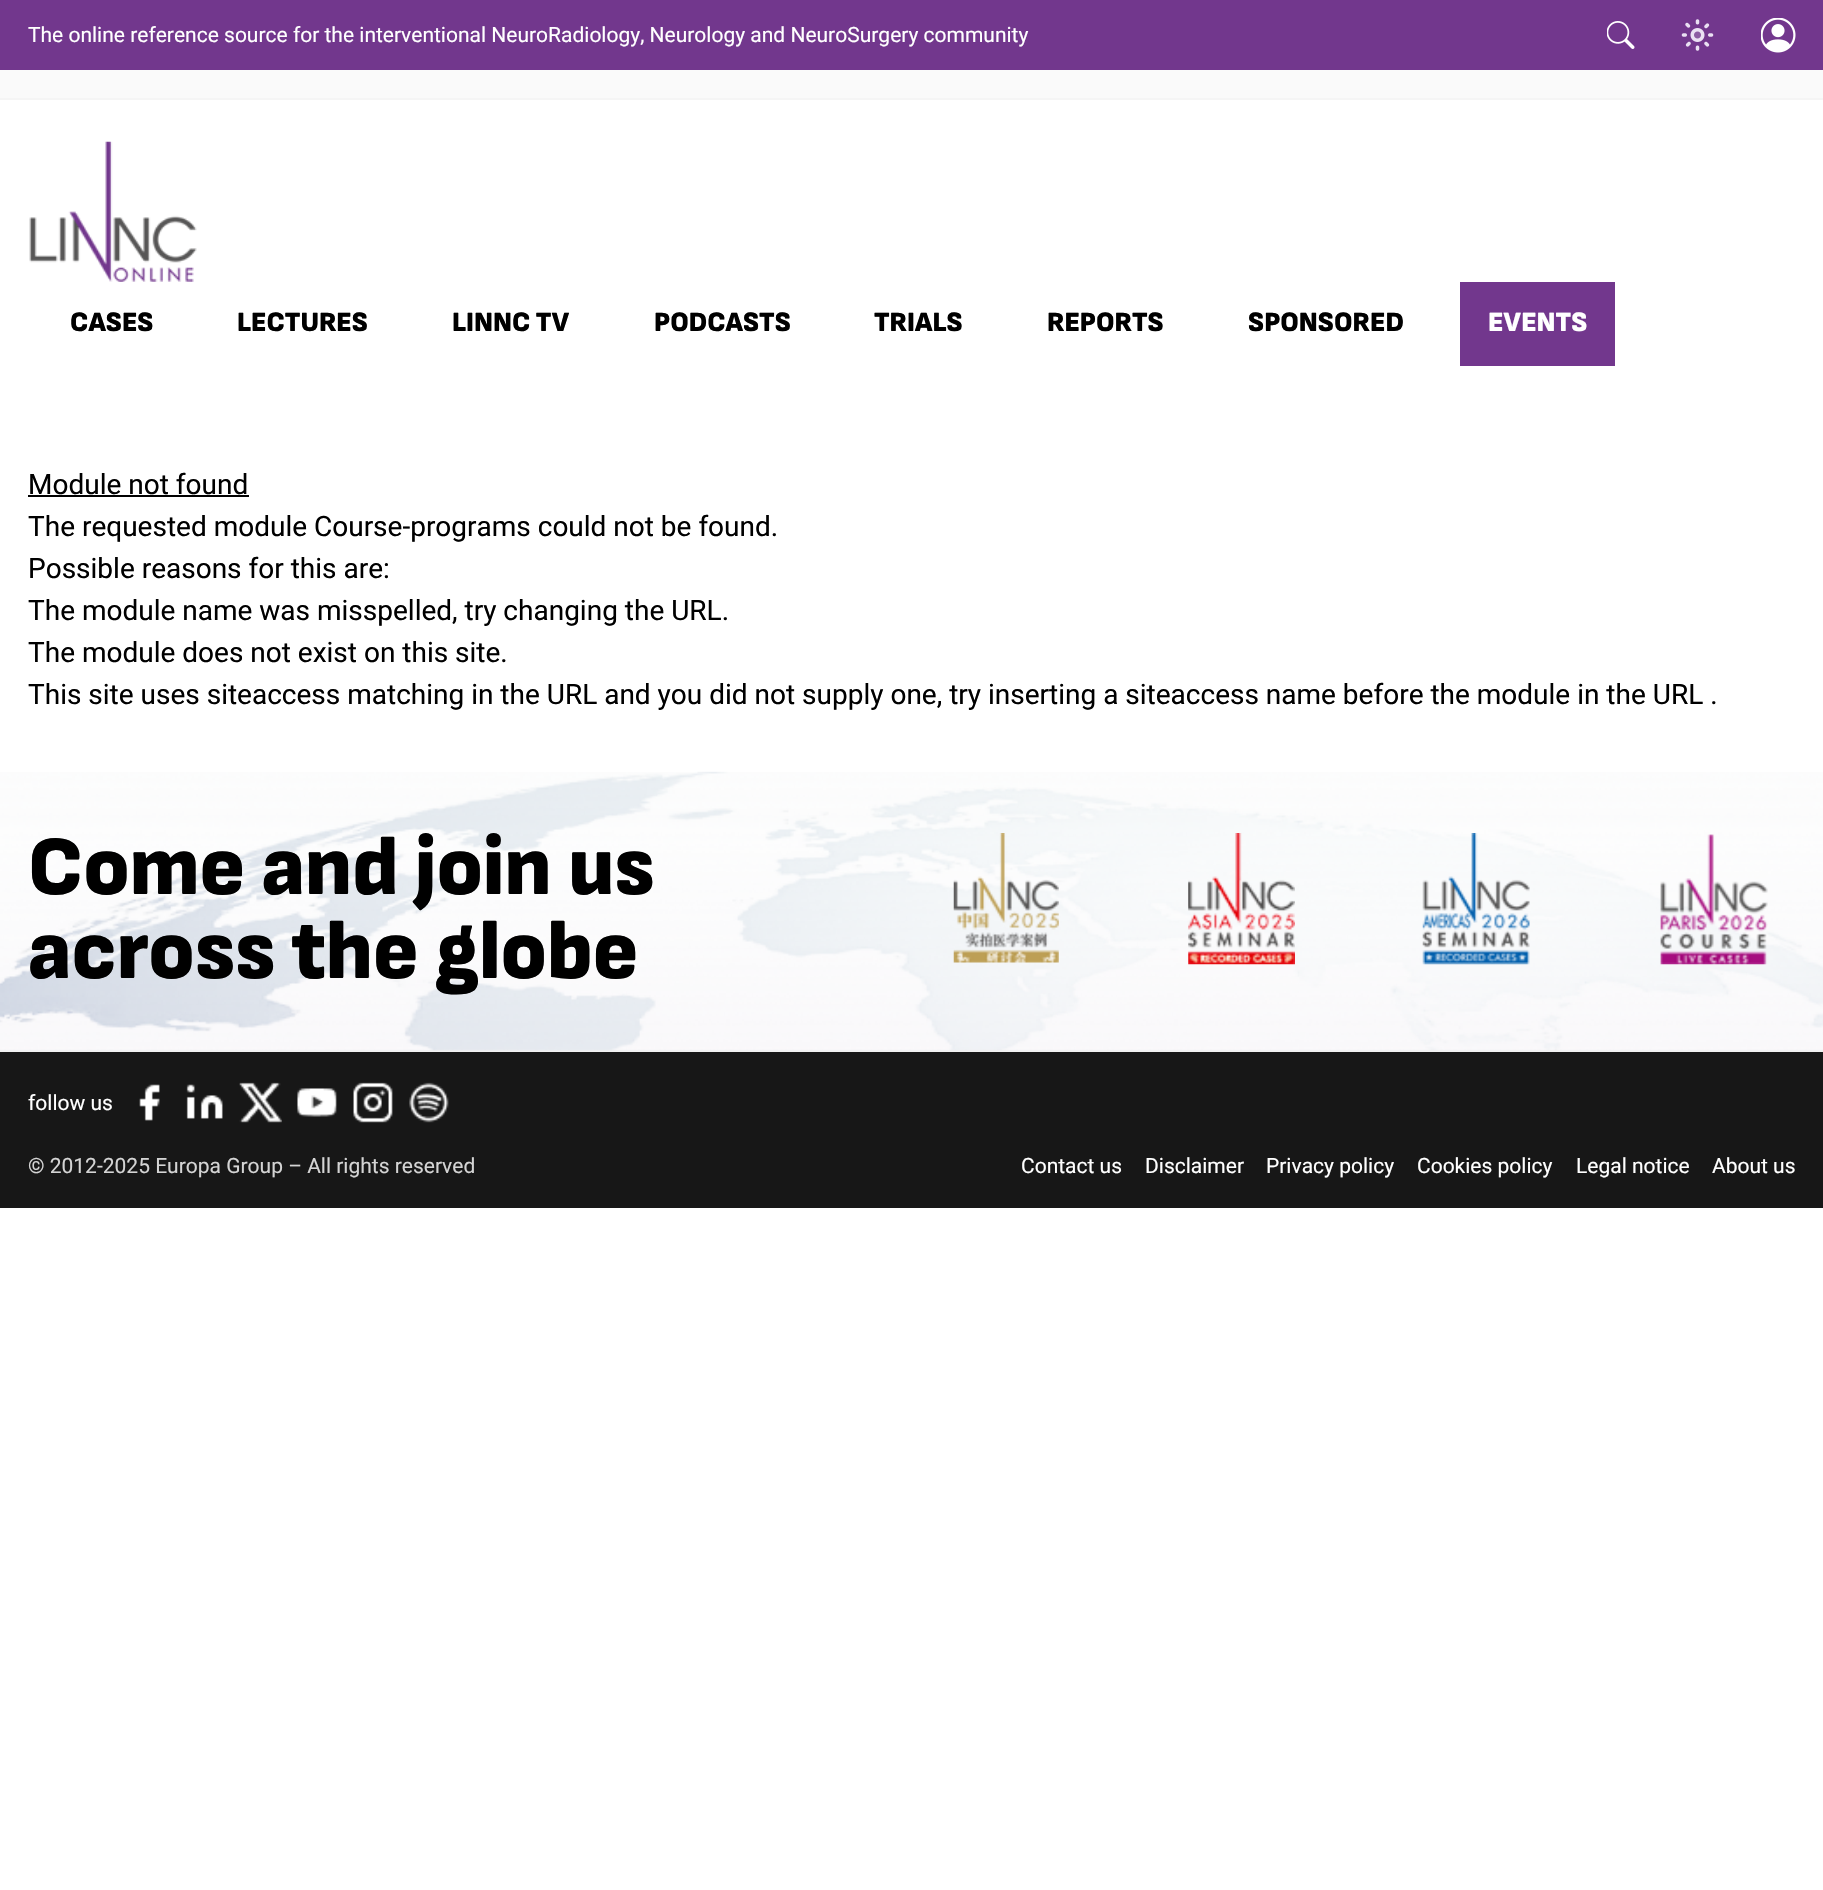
#include "include/core/SkBlurTypes.h"
#include "include/core/SkCanvas.h"
#include "include/core/SkData.h"
#include "include/core/SkFont.h"
#include "include/core/SkFontMgr.h"
#include "include/core/SkImage.h"
#include "include/core/SkMaskFilter.h"
#include "include/core/SkPaint.h"
#include "include/core/SkPathBuilder.h"
#include "include/core/SkTextBlob.h"
#include "include/effects/SkDashPathEffect.h"
#include "include/effects/SkGradientShader.h"
#include "include/utils/SkParsePath.h"

extern sk_sp<SkFontMgr> fontMgr;

void draw(SkCanvas* canvas) {
    SkPaint p;
    p.setAntiAlias(true);
    auto font = [&](const char* family, int weight, float size, bool italic = false) {
        SkFontStyle style(weight, SkFontStyle::kNormal_Width,
            italic ? SkFontStyle::kItalic_Slant : SkFontStyle::kUpright_Slant);
        SkFont result(fontMgr->matchFamilyStyle(family, style), size);
        result.setSubpixel(true);
        return result;
    };
    auto drawPhoto = [&](const char* path, float l, float t, float r, float b) {
        auto image = SkImages::DeferredFromEncodedData(SkData::MakeFromFileName(path));
        canvas->drawImageRect(image, SkRect::MakeLTRB(l, t, r, b), SkSamplingOptions());
    };
    canvas->clear(0xFFFFFFFF);
    p.setColor(0xFF72378D);
    canvas->drawRect(SkRect::MakeLTRB(0, 0, 1823, 70), p);
    auto font1 = font("Roboto", 400, 21);
    p.setColor(0xFFFFFFFF);
    canvas->drawString("The online reference source for the interventional NeuroRadiology, Neurology and NeuroSurgery community", 28, 42, font1, p);
    drawPhoto("media/1.png", 1607, 21, 1635, 49);
    drawPhoto("media/2.png", 1681, 19, 1714, 51);
    drawPhoto("media/3.png", 1761, 18, 1796, 53);
    p.setColor(0xFFFAFAFA);
    canvas->drawRect(SkRect::MakeLTRB(0, 70, 1823, 98), p);
    p.setColor(0xFFF5F5F5);
    canvas->drawRect(SkRect::MakeLTRB(0, 98, 1823, 100), p);
    drawPhoto("media/4.png", 29, 141, 197, 282);
    auto font2 = font("Sofia Sans", 900, 28);
    p.setColor(0xFF000000);
    {
        const struct { const char* s; float x, y; } items[] = {
            {"CASES", 70, 331},
            {"LECTURES", 237, 331},
            {"LINNC TV", 452, 331},
            {"PODCASTS", 654, 331},
            {"TRIALS", 874, 331},
            {"REPORTS", 1047, 331},
            {"SPONSORED", 1248, 331},
        };
        for (auto [s, x, y] : items) {
            canvas->drawString(s, x, y, font2, p);
        }
    }
    p.setColor(0xFF72378D);
    canvas->drawRect(SkRect::MakeLTRB(1460, 282, 1615, 366), p);
    p.setColor(0xFFFFFFFF);
    canvas->drawString("EVENTS", 1488, 331, font2, p);
    auto font3 = font("Roboto", 400, 28);
    p.setColor(0xFF000000);
    canvas->drawString("Module not found", 28, 494, font3, p);
    canvas->drawRect(SkRect::MakeLTRB(28, 495, 249, 497), p);
    {
        const struct { const char* s; float x, y; } items[] = {
            {"The requested module Course-programs could not be found.", 28, 536},
            {"Possible reasons for this are:", 28, 578},
            {"The module name was misspelled, try changing the URL.", 28, 620},
            {"The module does not exist on this site.", 28, 662},
            {"This site uses siteaccess matching in the URL and you did not supply one, try inserting a siteaccess name before the module in the URL .", 28, 704},
        };
        for (auto [s, x, y] : items) {
            canvas->drawString(s, x, y, font3, p);
        }
    }
    p.setColor(0xFFFAFAFA);
    canvas->drawRect(SkRect::MakeLTRB(0, 772, 1823, 1052), p);
    drawPhoto("media/5.png", 0, 771, 1823, 1052);
    auto font4 = font("Sofia Sans", 900, 84);
    p.setColor(0xFF000000);
    canvas->drawString("Come and join us", 28, 894, font4, p);
    canvas->drawString("across the globe", 28, 978, font4, p);
    drawPhoto("media/6.png", 953, 833, 1059, 963);
    drawPhoto("media/7.png", 1188, 833, 1295, 965);
    drawPhoto("media/8.png", 1422, 833, 1530, 965);
    drawPhoto("media/9.png", 1660, 834, 1768, 965);
    p.setColor(0xFF171717);
    canvas->drawRect(SkRect::MakeLTRB(0, 1052, 1823, 1208), p);
    p.setColor(0xFFFFFFFF);
    canvas->drawString("follow us", 28, 1110, font1, p);
    drawPhoto("media/10.png", 139, 1084, 160, 1121);
    drawPhoto("media/11.png", 186, 1084, 223, 1119);
    drawPhoto("media/12.png", 239, 1082, 282, 1123);
    drawPhoto("media/13.png", 297, 1088, 337, 1117);
    drawPhoto("media/14.png", 353, 1082, 393, 1123);
    drawPhoto("media/15.png", 409, 1082, 449, 1123);
    p.setColor(0xFFD4D4D4);
    canvas->drawString("© 2012-2025 Europa Group – All rights reserved", 28, 1173, font1, p);
    p.setColor(0xFFFFFFFF);
    {
        const struct { const char* s; float x, y; } items[] = {
            {"Contact us", 1021, 1173},
            {"Disclaimer", 1145, 1173},
            {"Privacy policy", 1266, 1173},
            {"Cookies policy", 1417, 1173},
            {"Legal notice", 1576, 1173},
            {"About us", 1712, 1173},
        };
        for (auto [s, x, y] : items) {
            canvas->drawString(s, x, y, font1, p);
        }
    }
}
